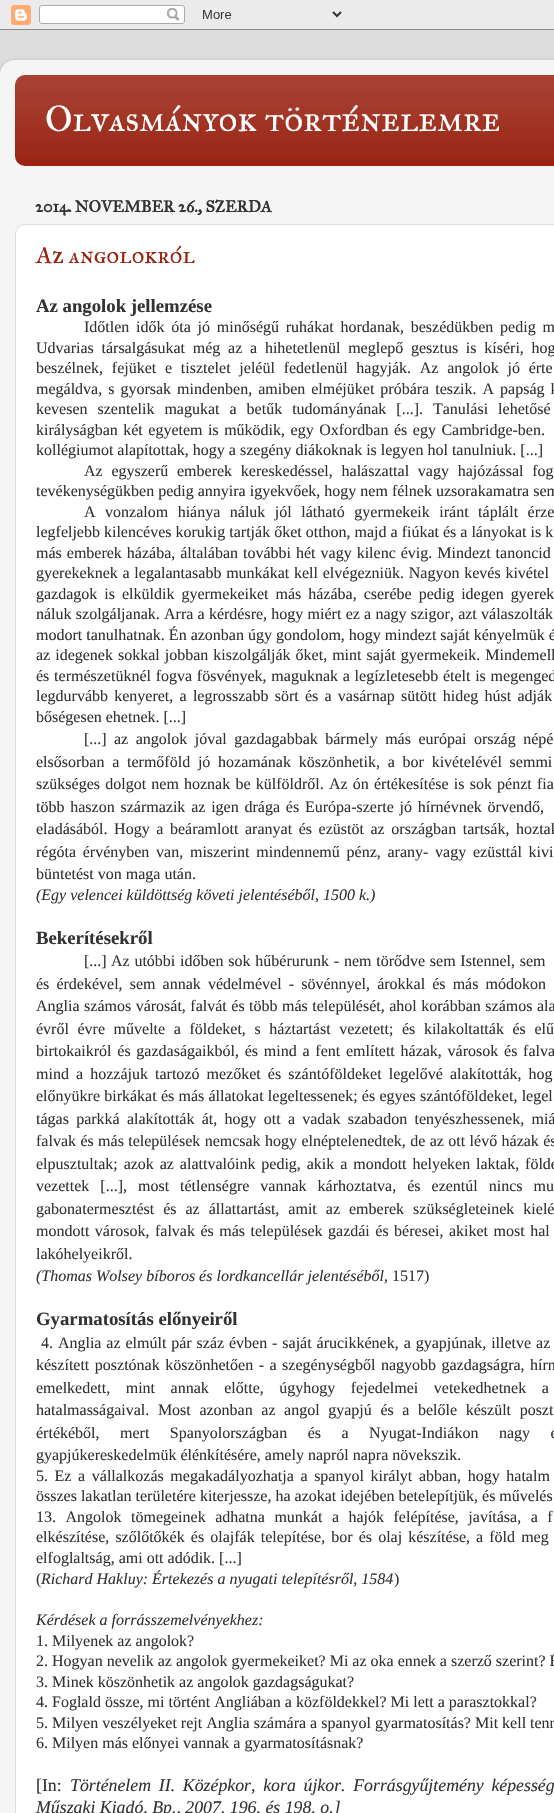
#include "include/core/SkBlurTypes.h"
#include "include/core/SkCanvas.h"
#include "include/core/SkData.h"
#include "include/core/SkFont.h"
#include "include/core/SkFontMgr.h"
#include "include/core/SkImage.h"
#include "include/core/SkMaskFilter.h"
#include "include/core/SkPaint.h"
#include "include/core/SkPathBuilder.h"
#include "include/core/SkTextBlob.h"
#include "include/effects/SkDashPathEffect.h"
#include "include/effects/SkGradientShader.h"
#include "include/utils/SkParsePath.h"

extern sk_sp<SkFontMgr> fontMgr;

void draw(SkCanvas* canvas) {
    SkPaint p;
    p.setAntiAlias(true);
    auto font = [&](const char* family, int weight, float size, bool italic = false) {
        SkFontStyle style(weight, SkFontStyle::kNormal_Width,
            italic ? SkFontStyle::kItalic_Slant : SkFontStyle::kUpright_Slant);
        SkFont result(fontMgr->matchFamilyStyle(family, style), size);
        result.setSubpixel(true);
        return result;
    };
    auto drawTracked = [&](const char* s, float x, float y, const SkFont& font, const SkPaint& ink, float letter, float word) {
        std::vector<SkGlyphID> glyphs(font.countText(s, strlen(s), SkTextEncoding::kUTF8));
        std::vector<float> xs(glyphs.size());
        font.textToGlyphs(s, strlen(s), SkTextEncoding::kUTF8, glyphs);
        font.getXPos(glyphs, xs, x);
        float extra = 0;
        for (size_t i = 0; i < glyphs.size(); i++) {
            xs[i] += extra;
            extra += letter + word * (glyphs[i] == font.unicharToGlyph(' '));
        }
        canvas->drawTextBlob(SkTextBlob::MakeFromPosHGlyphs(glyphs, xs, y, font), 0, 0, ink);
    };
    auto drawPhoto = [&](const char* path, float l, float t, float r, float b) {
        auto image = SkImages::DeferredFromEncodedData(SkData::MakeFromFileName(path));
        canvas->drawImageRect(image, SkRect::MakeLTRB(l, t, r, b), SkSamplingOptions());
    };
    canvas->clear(0xFFDDDDDD);
    drawPhoto("media/1.png", 0, 0, 554, 30);
    canvas->save();
    canvas->clipPath(SkPathBuilder(SkPathFillType::kEvenOdd).moveTo(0, 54).lineTo(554, 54).lineTo(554, 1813).lineTo(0, 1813).close().moveTo(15, 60).lineTo(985, 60).cubicTo(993.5f, 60, 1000, 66.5f, 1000, 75).lineTo(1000, 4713).cubicTo(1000, 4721.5f, 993.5f, 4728, 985, 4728).lineTo(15, 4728).cubicTo(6.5f, 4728, 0, 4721.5f, 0, 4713).lineTo(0, 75).cubicTo(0, 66.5f, 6.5f, 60, 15, 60).close().detach(), true);
    p.setColor(0x26000000);
    p.setMaskFilter(SkMaskFilter::MakeBlur(kNormal_SkBlurStyle, 1.5f));
    canvas->drawRoundRect(SkRect::MakeLTRB(0, 60, 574, 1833), 15, 15, p);
    p.setMaskFilter(nullptr);
    canvas->restore();
    drawPhoto("media/2.png", 0, 60, 554, 1813);
    p.setColor(0xFF992211);
    canvas->drawRoundRect(SkRect::MakeLTRB(15, 75, 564, 166), 10, 10, p);
    drawPhoto("media/3.png", 15, 75, 554, 159);
    auto font1 = font("IM FELL Great Primer SC", 400, 36);
    p.setColor(0xFFFFFFFF);
    canvas->drawString("Olvasmányok történelemre", 45, 131, font1, p);
    auto font2 = font("IM FELL Great Primer SC", 700, 16.25f);
    p.setColor(0xFF333333);
    canvas->drawString("2014. NOVEMBER 26., SZERDA", 35, 212, font2, p);
    p.setColor(0xFFFFFFFF);
    canvas->drawRoundRect(SkRect::MakeLTRB(15.5f, 224.5f, 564.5f, 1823.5f), 9.5f, 9.5f, p);
    p.setStyle(SkPaint::kStroke_Style);
    p.setStrokeWidth(1);
    p.setColor(0xFFDDDDDD);
    canvas->drawRoundRect(SkRect::MakeLTRB(15.5f, 224.5f, 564.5f, 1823.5f), 9.5f, 9.5f, p);
    auto font3 = font("IM FELL Great Primer SC", 400, 24);
    p.setStyle(SkPaint::kFill_Style);
    p.setColor(0xFF992211);
    canvas->drawString("Az angolokról", 36, 263, font3, p);
    auto font4 = font("Liberation Serif", 700, 18.75f);
    p.setColor(0xFF333333);
    canvas->drawString("Az angolok jellemzése", 36, 312, font4, p);
    auto font5 = font("Liberation Serif", 400, 16);
    drawTracked("Időtlen idők óta jó minőségű ruhákat hordanak, beszédükben pedig m", 84, 332, font5, p, 0, 2.75f);
    drawTracked("Udvarias társalgásukat még az a hihetetlenül meglepő gesztus is kíséri, hog", 36, 353, font5, p, 0, 3.75f);
    drawTracked("beszélnek, fejüket e tisztelet jeléül fedetlenül hagyják. Az angolok jó érte", 36, 373, font5, p, 0, 4.75f);
    drawTracked("megáldva, s gyorsak mindenben, amiben elméjüket próbára teszik. A papság k", 36, 394, font5, p, 0, 2);
    drawTracked("kevesen szentelik magukat a betűk tudományának [...]. Tanulási lehetősé", 36, 414, font5, p, 0, 6);
    drawTracked("királyságban két egyetem is működik, egy Oxfordban és egy Cambridge-ben.", 36, 435, font5, p, 0, 1.5f);
    canvas->drawString("kollégiumot alapítottak, hogy a szegény diákoknak is legyen hol tanulniuk. [...]", 36, 455, font5, p);
    drawTracked("Az egyszerű emberek kereskedéssel, halászattal vagy hajózással fog", 84, 476, font5, p, 0, 4.75f);
    canvas->drawString("tevékenységükben pedig annyira igyekvőek, hogy nem félnek uzsorakamatra sem", 36, 496, font5, p);
    drawTracked("A vonzalom hiánya náluk jól látható gyermekeik iránt táplált érze", 84, 517, font5, p, 0, 5.5f);
    canvas->drawString("legfeljebb kilencéves korukig tartják őket otthon, majd a fiúkat és a lányokat is k", 36, 537, font5, p);
    drawTracked("más emberek házába, általában további hét vagy kilenc évig. Mindezt tanoncid", 36, 558, font5, p, 0, 1);
    drawTracked("gyerekeknek a legalantasabb munkákat kell elvégezniük. Nagyon kevés kivétel", 36, 578, font5, p, 0, 0.75f);
    drawTracked("gazdagok is elküldik gyermekeiket más házába, cserébe pedig idegen gyerek", 36, 599, font5, p, 0, 3);
    drawTracked("náluk szolgáljanak. Arra a kérdésre, hogy miért ez a nagy szigor, azt válaszolták", 36, 619, font5, p, 0, 0.25f);
    canvas->drawString("modort tanulhatnak. Én azonban úgy gondolom, hogy mindezt saját kényelmük é", 36, 640, font5, p);
    drawTracked("az idegenek sokkal jobban kiszolgálják őket, mint saját gyermekeik. Mindemell", 36, 660, font5, p, 0, 1);
    drawTracked("és természetüknél fogva fösvények, maguknak a legízletesebb ételt is megenged", 36, 681, font5, p, 0, 0.75f);
    drawTracked("legdurvább kenyeret, a legrosszabb sört és a vasárnap sütött hideg húst adják", 36, 701, font5, p, 0, 2.25f);
    canvas->drawString("bőségesen ehetnek. [...]", 36, 722, font5, p);
    canvas->drawString("[...]", 84, 744, font5, p);
    drawTracked("az angolok jóval gazdagabbak bármely más európai ország népé", 114, 744, font5, p, 0, 3.5f);
    drawTracked("elsősorban a termőföld jó hozamának köszönhetik, a bor kivételévél semmi", 36, 767, font5, p, 0, 3.75f);
    drawTracked("szükséges dolgot nem hoznak be külföldről. Az ón értékesítése is sok pénzt fia", 36, 789, font5, p, 0, 1.2f);
    drawTracked("több haszon származik az igen drága és Európa-szerte jó hírnévnek örvendő,", 36, 812, font5, p, 0, 1.8f);
    drawTracked("eladásából. Hogy a beáramlott aranyat és ezüstöt az országban tartsák, hoztak", 36, 834, font5, p, 0, 2.6f);
    drawTracked("régóta érvényben van, miszerint mindennemű pénz, arany- vagy ezüsttál kivi", 36, 857, font5, p, 0, 2.75f);
    canvas->drawString("büntetést von maga után.", 36, 879, font5, p);
    auto font6 = font("Liberation Serif", 400, 16, true);
    canvas->drawString("(Egy velencei küldöttség követi jelentéséből, 1500 k.)", 36, 900, font6, p);
    canvas->drawString("Bekerítésekről", 36, 944, font4, p);
    canvas->drawString("[...]", 84, 966, font5, p);
    drawTracked("Az utóbbi időben sok hűbérurunk - nem törődve sem Istennel, sem", 111, 966, font5, p, 0, 0.75f);
    drawTracked("és érdekével, sem annak védelmével - sövénnyel, árokkal és más módokon", 36, 989, font5, p, 0, 3.1f);
    drawTracked("Anglia számos városát, falvát és több más települését, ahol korábban számos ala", 36, 1011, font5, p, 0, 0.5f);
    drawTracked("évről évre művelte a földeket, s háztartást vezetett; és kilakoltatták és elű", 36, 1034, font5, p, 0, 4.6f);
    drawTracked("birtokaikról és gazdaságaikból, és mind a fent említett házak, városok és falva", 36, 1056, font5, p, 0, 1.75f);
    drawTracked("mind a hozzájuk tartozó mezőket és szántóföldeket legelővé alakították, hog", 36, 1079, font5, p, 0, 3.1f);
    drawTracked("előnyükre birkákat és más állatokat legeltessenek; és egyes szántóföldeket, legel", 36, 1101, font5, p, 0, 0.25f);
    drawTracked("tágas parkká alakították át, hogy ott a vadak szabadon tenyészhessenek, miá", 36, 1124, font5, p, 0, 3.25f);
    drawTracked("falvak és más települések nemcsak hogy elnéptelenedtek, de az ott lévő házak és", 36, 1146, font5, p, 0, 0.4f);
    drawTracked("elpusztultak; azok az alattvalóink pedig, akik a mondott helyeken laktak, földe", 36, 1169, font5, p, 0, 1.9f);
    drawTracked("vezettek [...], most tétlenségre vannak kárhoztatva, és ezentúl nincs mu", 36, 1191, font5, p, 0, 7);
    drawTracked("gabonatermesztést és az állattartást, amit az emberek szükségleteinek kielé", 36, 1214, font5, p, 0, 5);
    drawTracked("mondott városok, falvak és más települések gazdái és béresei, akiket most hal", 36, 1236, font5, p, 0, 1.5f);
    canvas->drawString("lakóhelyeikről.", 36, 1259, font5, p);
    canvas->drawString("(Thomas Wolsey bíboros és lordkancellár jelentéséből,", 36, 1281, font6, p);
    canvas->drawString("1517)", 392, 1281, font5, p);
    canvas->drawString("Gyarmatosítás előnyeiről", 36, 1325, font4, p);
    drawTracked("4. Anglia az elmúlt pár száz évben - saját árucikkének, a gyapjúnak, illetve az", 41, 1348, font5, p, 0, 0.9f);
    drawTracked("készített posztónak köszönhetően - a szegénységből nagyobb gazdagságra, hírn", 36, 1370, font5, p, 0, 1.5f);
    drawTracked("emelkedett, mint annak előtte, úgyhogy fejedelmei vetekedhetnek a", 36, 1393, font5, p, 0, 11.5f);
    drawTracked("hatalmasságaival. Most azonban az angol gyapjú és a belőle készült poszt", 36, 1415, font5, p, 0, 4.6f);
    drawTracked("értékéből, mert Spanyolországban és a Nyugat-Indiákon nagy e", 36, 1438, font5, p, 0, 16.5f);
    canvas->drawString("gyapjúkereskedelmük élénkítésére, amely napról napra növekszik.", 36, 1460, font5, p);
    drawTracked("5. Ez a vállalkozás megakadályozhatja a spanyol királyt abban, hogy hatalm", 36, 1481, font5, p, 0, 2.6f);
    canvas->drawString("összes lakatlan területére kiterjessze, ha azokat idejében betelepítjük, és művelés", 36, 1501, font5, p);
    drawTracked("13. Angolok tömegeinek adhatna munkát a hajók felépítése, javítása, a f", 36, 1522, font5, p, 0, 5.5f);
    drawTracked("elkészítése, szőlőtőkék és olajfák telepítése, bor és olaj készítése, a föld meg", 36, 1542, font5, p, 0, 2.1f);
    canvas->drawString("elfoglaltság, ami ott adódik. [...]", 36, 1563, font5, p);
    canvas->drawString("(", 36, 1584, font5, p);
    canvas->drawString("Richard Hakluy: Értekezés a nyugati telepítésről, 1584", 41, 1584, font6, p);
    canvas->drawString(")", 394, 1584, font5, p);
    canvas->drawString("Kérdések a forrásszemelvényekhez:", 36, 1625, font6, p);
    {
        const struct { const char* s; float x, y; } items[] = {
            {"1. Milyenek az angolok?", 36, 1646},
            {"2. Hogyan nevelik az angolok gyermekeiket? Mi az oka ennek a szerző szerint? É", 36, 1666},
            {"3. Minek köszönhetik az angolok gazdagságukat?", 36, 1687},
            {"4. Foglald össze, mi történt Angliában a közföldekkel? Mi lett a parasztokkal?", 36, 1707},
            {"5. Milyen veszélyeket rejt Anglia számára a spanyol gyarmatosítás? Mit kell tenn", 36, 1728},
            {"6. Milyen más előnyei vannak a gyarmatosításnak?", 36, 1748},
        };
        for (auto [s, x, y] : items) {
            canvas->drawString(s, x, y, font5, p);
        }
    }
    auto font7 = font("Liberation Serif", 400, 17.8f);
    canvas->drawString("[In:", 36, 1791, font7, p);
    auto font8 = font("Liberation Serif", 400, 17.8f, true);
    drawTracked("Történelem II. Középkor, kora újkor. Forrásgyűjtemény képesség", 70, 1791, font8, p, 0, 3.25f);
    canvas->drawString("Műszaki Kiadó, Bp., 2007. 196. és 198. o.]", 36, 1813, font8, p);
}
